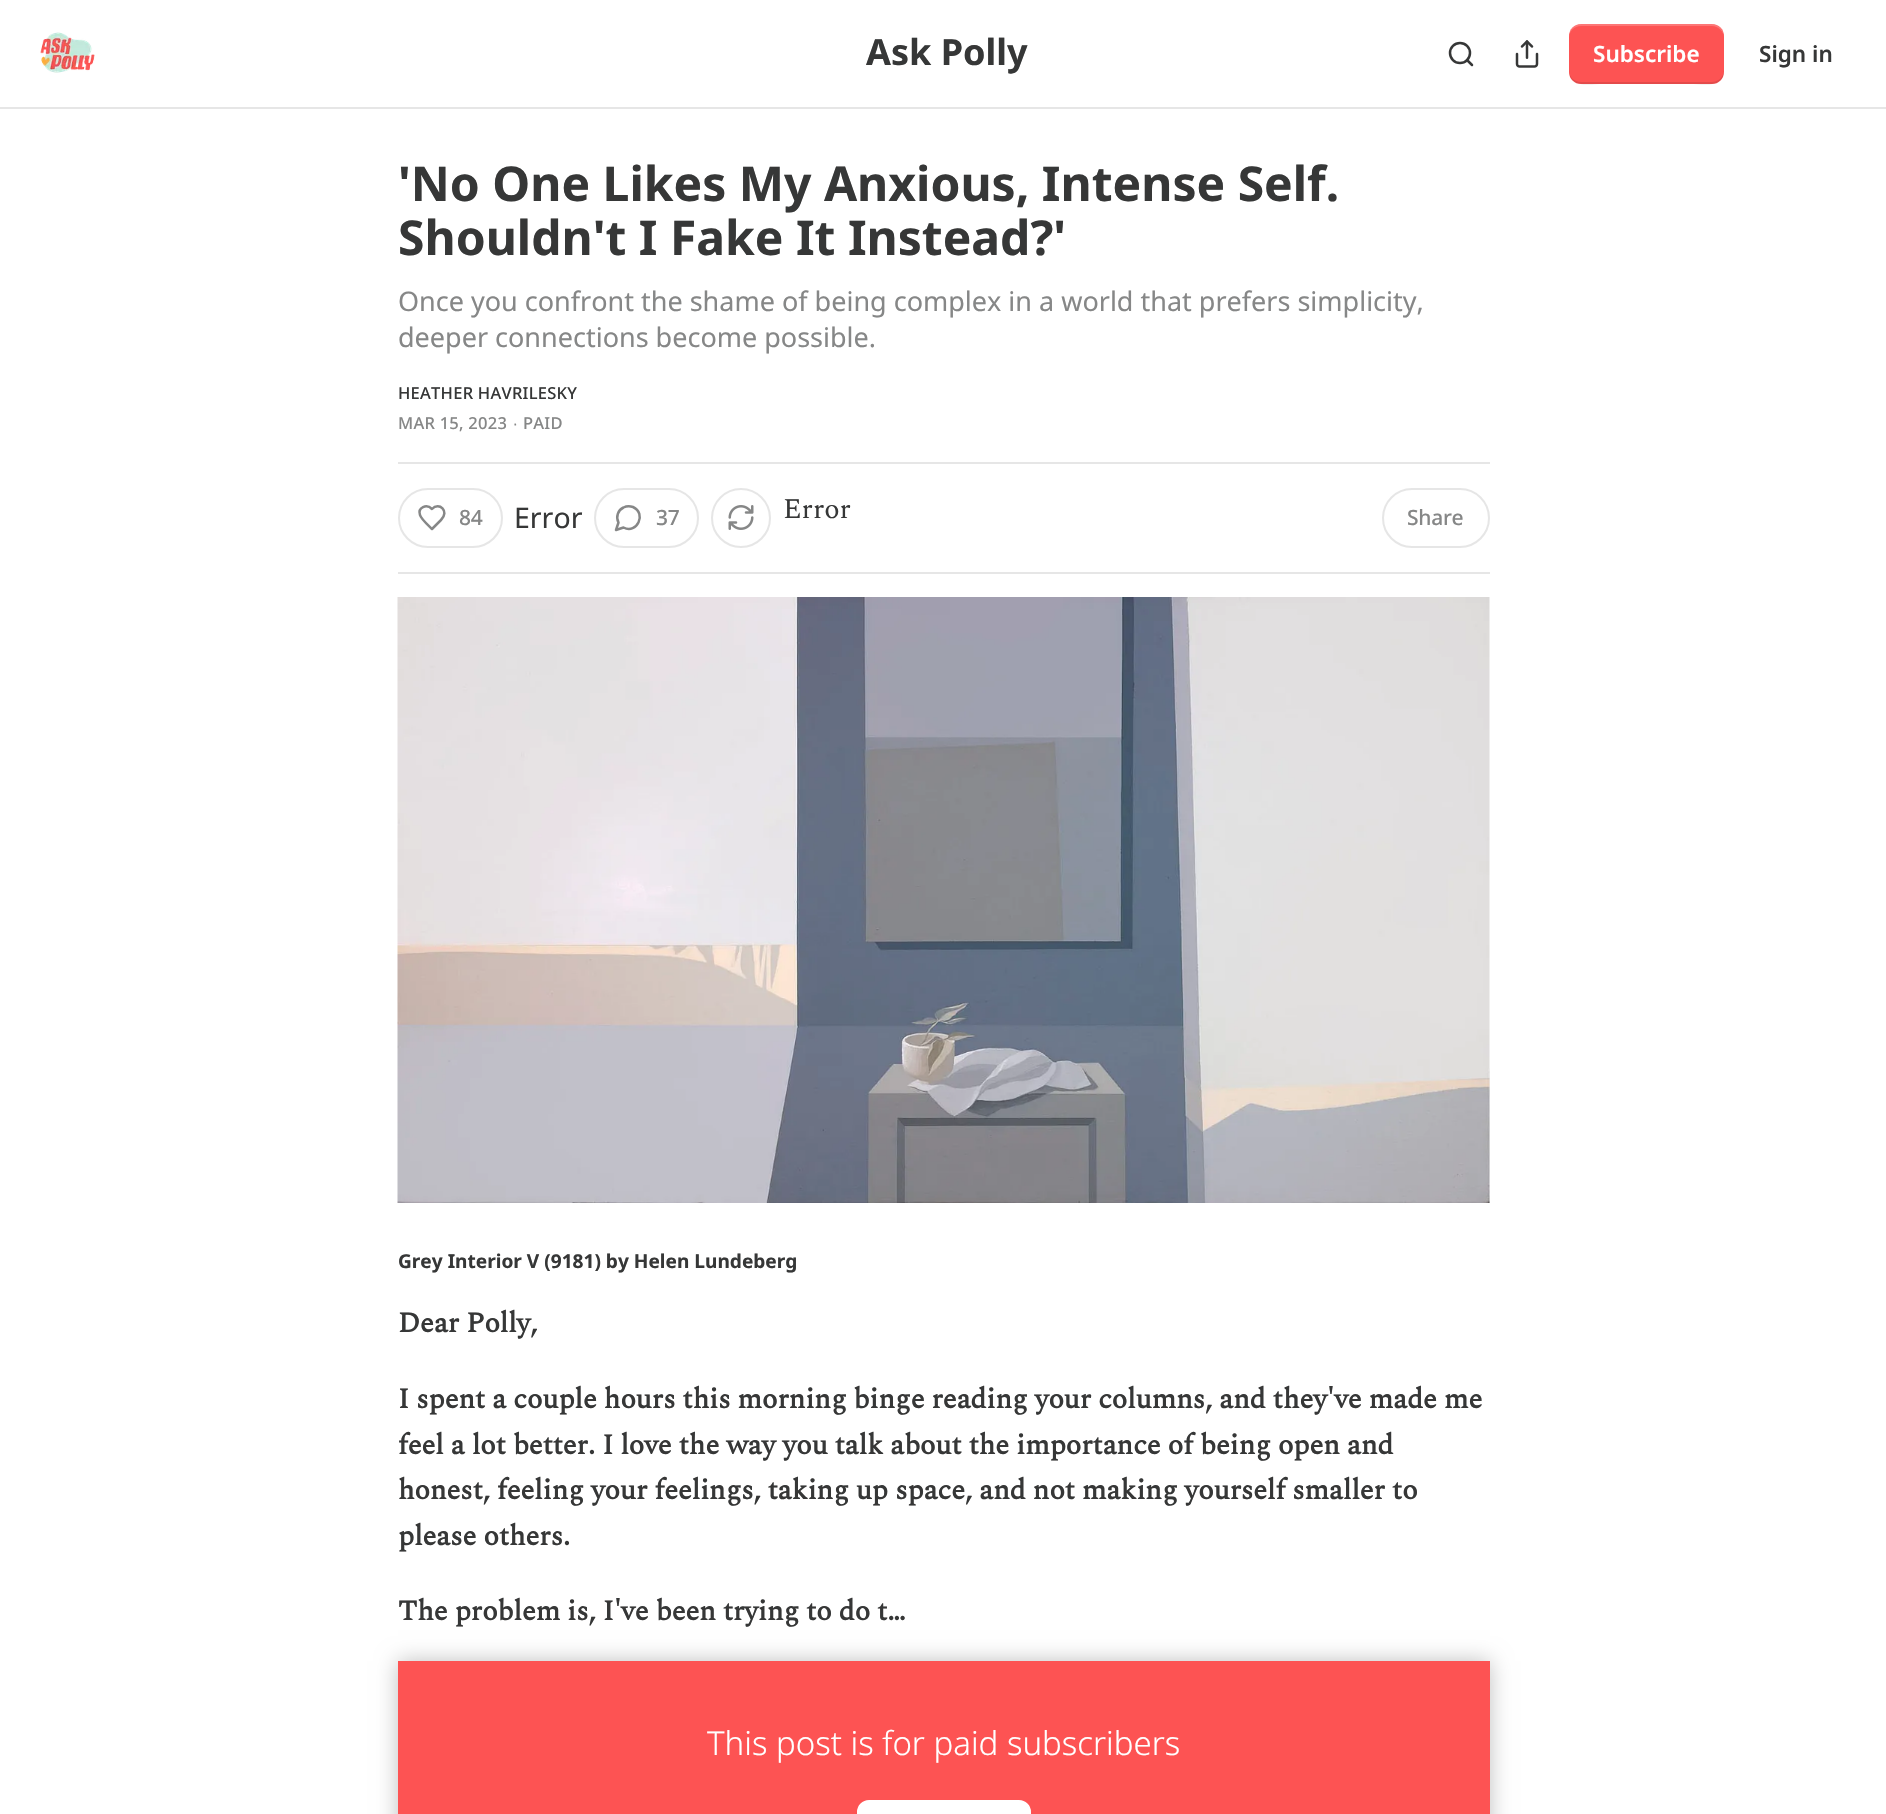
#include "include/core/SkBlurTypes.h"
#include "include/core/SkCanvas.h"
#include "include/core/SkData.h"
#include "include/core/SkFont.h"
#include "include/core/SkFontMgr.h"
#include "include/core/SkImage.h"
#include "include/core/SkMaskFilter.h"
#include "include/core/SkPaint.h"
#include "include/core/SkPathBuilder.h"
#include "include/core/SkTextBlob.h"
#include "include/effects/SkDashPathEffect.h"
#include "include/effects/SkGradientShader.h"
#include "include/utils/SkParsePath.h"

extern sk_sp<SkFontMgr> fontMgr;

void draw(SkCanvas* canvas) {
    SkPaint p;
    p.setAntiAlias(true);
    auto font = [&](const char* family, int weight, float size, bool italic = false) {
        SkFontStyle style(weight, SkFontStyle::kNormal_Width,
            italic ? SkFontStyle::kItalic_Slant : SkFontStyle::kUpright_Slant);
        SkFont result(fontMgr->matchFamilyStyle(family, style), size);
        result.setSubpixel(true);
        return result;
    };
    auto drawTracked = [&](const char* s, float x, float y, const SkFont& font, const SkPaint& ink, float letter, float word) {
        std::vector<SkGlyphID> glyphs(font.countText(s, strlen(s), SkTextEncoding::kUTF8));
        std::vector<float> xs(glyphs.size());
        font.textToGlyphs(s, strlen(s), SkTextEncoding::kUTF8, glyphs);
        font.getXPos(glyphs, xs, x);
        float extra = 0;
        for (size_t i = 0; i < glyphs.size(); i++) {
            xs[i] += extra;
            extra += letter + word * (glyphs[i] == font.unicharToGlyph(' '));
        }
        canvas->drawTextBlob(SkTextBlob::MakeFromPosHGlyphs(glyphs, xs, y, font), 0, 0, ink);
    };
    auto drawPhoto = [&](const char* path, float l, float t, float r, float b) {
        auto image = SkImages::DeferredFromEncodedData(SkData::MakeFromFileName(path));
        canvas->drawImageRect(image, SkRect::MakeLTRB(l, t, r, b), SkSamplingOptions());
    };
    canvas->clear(0xFFFFFFFF);
    p.setColor(0xFFE6E6E6);
    canvas->drawRect(SkRect::MakeLTRB(0, 107, 1886, 109), p);
    drawPhoto("media/1.png", 40, 32, 95, 73);
    auto font1 = font("Noto Sans", 700, 36);
    p.setColor(0xFF363737);
    canvas->drawString("Ask Polly", 866, 65, font1, p);
    p.setStyle(SkPaint::kStroke_Style);
    p.setStrokeWidth(2.5f);
    canvas->drawCircle(1460, 53, 10, p);
    p.setStrokeCap(SkPaint::kRound_Cap);
    p.setStrokeJoin(SkPaint::kRound_Join);
    canvas->drawPath(SkPathBuilder().moveTo(1472, 65).lineTo(1467, 60).detach(), p);
    drawPhoto("media/2.png", 1515, 40, 1539, 68);
    p.setStyle(SkPaint::kFill_Style);
    p.setColor(0xFFFD5353);
    canvas->drawRoundRect(SkRect::MakeLTRB(1569, 24, 1724, 84), 12, 12, p);
    p.setColor(0x1A000000);
    canvas->drawPath(SkPathBuilder().moveTo(1569, 70).cubicTo(1569, 89, 1589, 84, 1603, 84).lineTo(1690, 84).cubicTo(1704, 84, 1724, 89, 1724, 70).cubicTo(1724, 77, 1718, 82, 1712, 82).lineTo(1581, 82).cubicTo(1574, 82, 1569, 77, 1569, 70).close().detach(), p);
    p.setColor(0x33FFFFFF);
    canvas->drawPath(SkPathBuilder().moveTo(1581, 26).lineTo(1712, 26).cubicTo(1718, 26, 1724, 31, 1724, 38).cubicTo(1724, 19, 1704, 24, 1690, 24).lineTo(1603, 24).cubicTo(1589, 24, 1569, 19, 1569, 38).cubicTo(1569, 31, 1574, 26, 1581, 26).close().detach(), p);
    auto font2 = font("Noto Sans", 600, 22.5f);
    p.setColor(0xFFFFFFFF);
    canvas->drawString("Subscribe", 1593, 62, font2, p);
    p.setColor(0xFF363737);
    canvas->drawString("Sign in", 1759, 62, font2, p);
    auto font3 = font("Noto Sans", 700, 48);
    canvas->drawString("'No One Likes My Anxious, Intense Self.", 398, 201, font3, p);
    canvas->drawString("Shouldn't I Fake It Instead?'", 398, 255, font3, p);
    auto font4 = font("Noto Sans", 400, 27);
    p.setColor(0xFF868787);
    canvas->drawString("Once you confront the shame of being complex in a world that prefers simplicity,", 398, 311, font4, p);
    canvas->drawString("deeper connections become possible.", 398, 347, font4, p);
    auto font5 = font("Noto Sans", 500, 16.5f);
    p.setColor(0xFF363737);
    drawTracked("HEATHER HAVRILESKY", 398, 399, font5, p, 0.25f, 0);
    p.setColor(0xFF868787);
    drawTracked("MAR 15, 2023", 398, 429, font5, p, 0.25f, 0);
    auto font6 = font("Liberation Sans", 400, 16.5f);
    drawTracked("∙", 513, 429, font6, p, 0.25f, 0);
    drawTracked("PAID", 523, 429, font5, p, 0.25f, 0);
    p.setColor(0xFFE6E6E6);
    canvas->drawRect(SkRect::MakeLTRB(398, 462, 1490, 464), p);
    canvas->drawRect(SkRect::MakeLTRB(398, 572, 1490, 574), p);
    p.setStyle(SkPaint::kStroke_Style);
    p.setStrokeWidth(2);
    p.setStrokeCap(SkPaint::kButt_Cap);
    p.setStrokeJoin(SkPaint::kMiter_Join);
    canvas->drawRoundRect(SkRect::MakeLTRB(399, 489, 502, 547), 29, 29, p);
    p.setStrokeWidth(2.5f);
    p.setStrokeCap(SkPaint::kRound_Cap);
    p.setStrokeJoin(SkPaint::kRound_Join);
    p.setColor(0xFF868787);
    canvas->drawPath(SkPathBuilder().moveTo(441, 520).cubicTo(450, 511, 439, 501.5f, 432, 509).cubicTo(426.5f, 503.5f, 417.5f, 507.5f, 420, 515).cubicTo(421, 519, 429, 526, 432, 529).close().detach(), p);
    auto font7 = font("Noto Sans", 500, 21);
    p.setStyle(SkPaint::kFill_Style);
    drawTracked("84", 459, 525, font7, p, -0.25f, 0);
    auto font8 = font("Noto Sans", 400, 28.5f);
    p.setColor(0xFF363737);
    canvas->drawString("Error", 514, 528, font8, p);
    p.setStyle(SkPaint::kStroke_Style);
    p.setStrokeWidth(2);
    p.setStrokeCap(SkPaint::kButt_Cap);
    p.setStrokeJoin(SkPaint::kMiter_Join);
    p.setColor(0xFFE6E6E6);
    canvas->drawRoundRect(SkRect::MakeLTRB(595, 489, 698, 547), 29, 29, p);
    p.setStrokeWidth(2.5f);
    p.setStrokeCap(SkPaint::kRound_Cap);
    p.setStrokeJoin(SkPaint::kRound_Join);
    p.setColor(0xFF868787);
    canvas->drawPath(SkPathBuilder().moveTo(623.5f, 527.5f).cubicTo(637, 534.5f, 647, 513.5f, 633, 507).cubicTo(630, 506, 626.5f, 506, 623.5f, 507.5f).cubicTo(618, 510, 615.5f, 517, 618.5f, 522.5f).lineTo(616, 530).close().detach(), p);
    p.setStyle(SkPaint::kFill_Style);
    drawTracked("37", 656, 525, font7, p, -0.25f, 0);
    p.setStyle(SkPaint::kStroke_Style);
    p.setStrokeWidth(2);
    p.setStrokeCap(SkPaint::kButt_Cap);
    p.setStrokeJoin(SkPaint::kMiter_Join);
    p.setColor(0xFFE6E6E6);
    canvas->drawCircle(741, 518, 29, p);
    drawPhoto("media/3.png", 728, 505, 754, 530);
    auto font9 = font("Spectral", 400, 28.5f);
    p.setStyle(SkPaint::kFill_Style);
    p.setColor(0xFF363737);
    canvas->drawString("Error", 783, 518, font9, p);
    p.setStyle(SkPaint::kStroke_Style);
    p.setColor(0xFFE6E6E6);
    canvas->drawRoundRect(SkRect::MakeLTRB(1383, 489, 1489, 547), 29, 29, p);
    p.setStyle(SkPaint::kFill_Style);
    p.setColor(0xFF868787);
    drawTracked("Share", 1407, 525, font7, p, -0.25f, 0);
    drawPhoto("media/4.png", 397, 597, 1490, 1203);
    auto font10 = font("Noto Sans", 700, 19.1f);
    p.setColor(0xFF363737);
    canvas->drawString("Grey Interior V (9181) by Helen Lundeberg", 398, 1268, font10, p);
    auto font11 = font("Spectral", 700, 28.5f);
    {
        const struct { const char* s; float x, y; } items[] = {
            {"Dear Polly,", 398, 1332},
            {"I spent a couple hours this morning binge reading your columns, and they've made me", 398, 1408},
            {"feel a lot better. I love the way you talk about the importance of being open and", 398, 1454},
            {"honest, feeling your feelings, taking up space, and not making yourself smaller to", 398, 1499},
            {"please others.", 398, 1545},
            {"The problem is, I've been trying to do t…", 398, 1620},
        };
        for (auto [s, x, y] : items) {
            canvas->drawString(s, x, y, font11, p);
        }
    }
    p.setColor(0xFFFD5353);
    canvas->drawRect(SkRect::MakeLTRB(398, 1661, 1490, 1814), p);
    p.setColor(0xFFFFFFFF);
    canvas->drawRoundRect(SkRect::MakeLTRB(858, 1801, 1030, 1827), 11, 11, p);
    p.setStyle(SkPaint::kStroke_Style);
    canvas->drawRoundRect(SkRect::MakeLTRB(858, 1801, 1030, 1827), 11, 11, p);
    canvas->save();
    canvas->clipPath(SkPathBuilder(SkPathFillType::kEvenOdd).moveTo(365, 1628).lineTo(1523, 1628).lineTo(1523, 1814).lineTo(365, 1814).close().moveTo(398, 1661).lineTo(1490, 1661).lineTo(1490, 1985).lineTo(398, 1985).close().detach(), true);
    p.setStyle(SkPaint::kFill_Style);
    p.setColor(0x40000000);
    p.setMaskFilter(SkMaskFilter::MakeBlur(kNormal_SkBlurStyle, 10.5f));
    canvas->drawRect(SkRect::MakeLTRB(398, 1661, 1490, 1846), p);
    p.setMaskFilter(nullptr);
    canvas->restore();
    auto font12 = font("Noto Sans", 300, 33);
    p.setColor(0xFFFFFFFF);
    canvas->drawString("This post is for paid subscribers", 707, 1755, font12, p);
}
